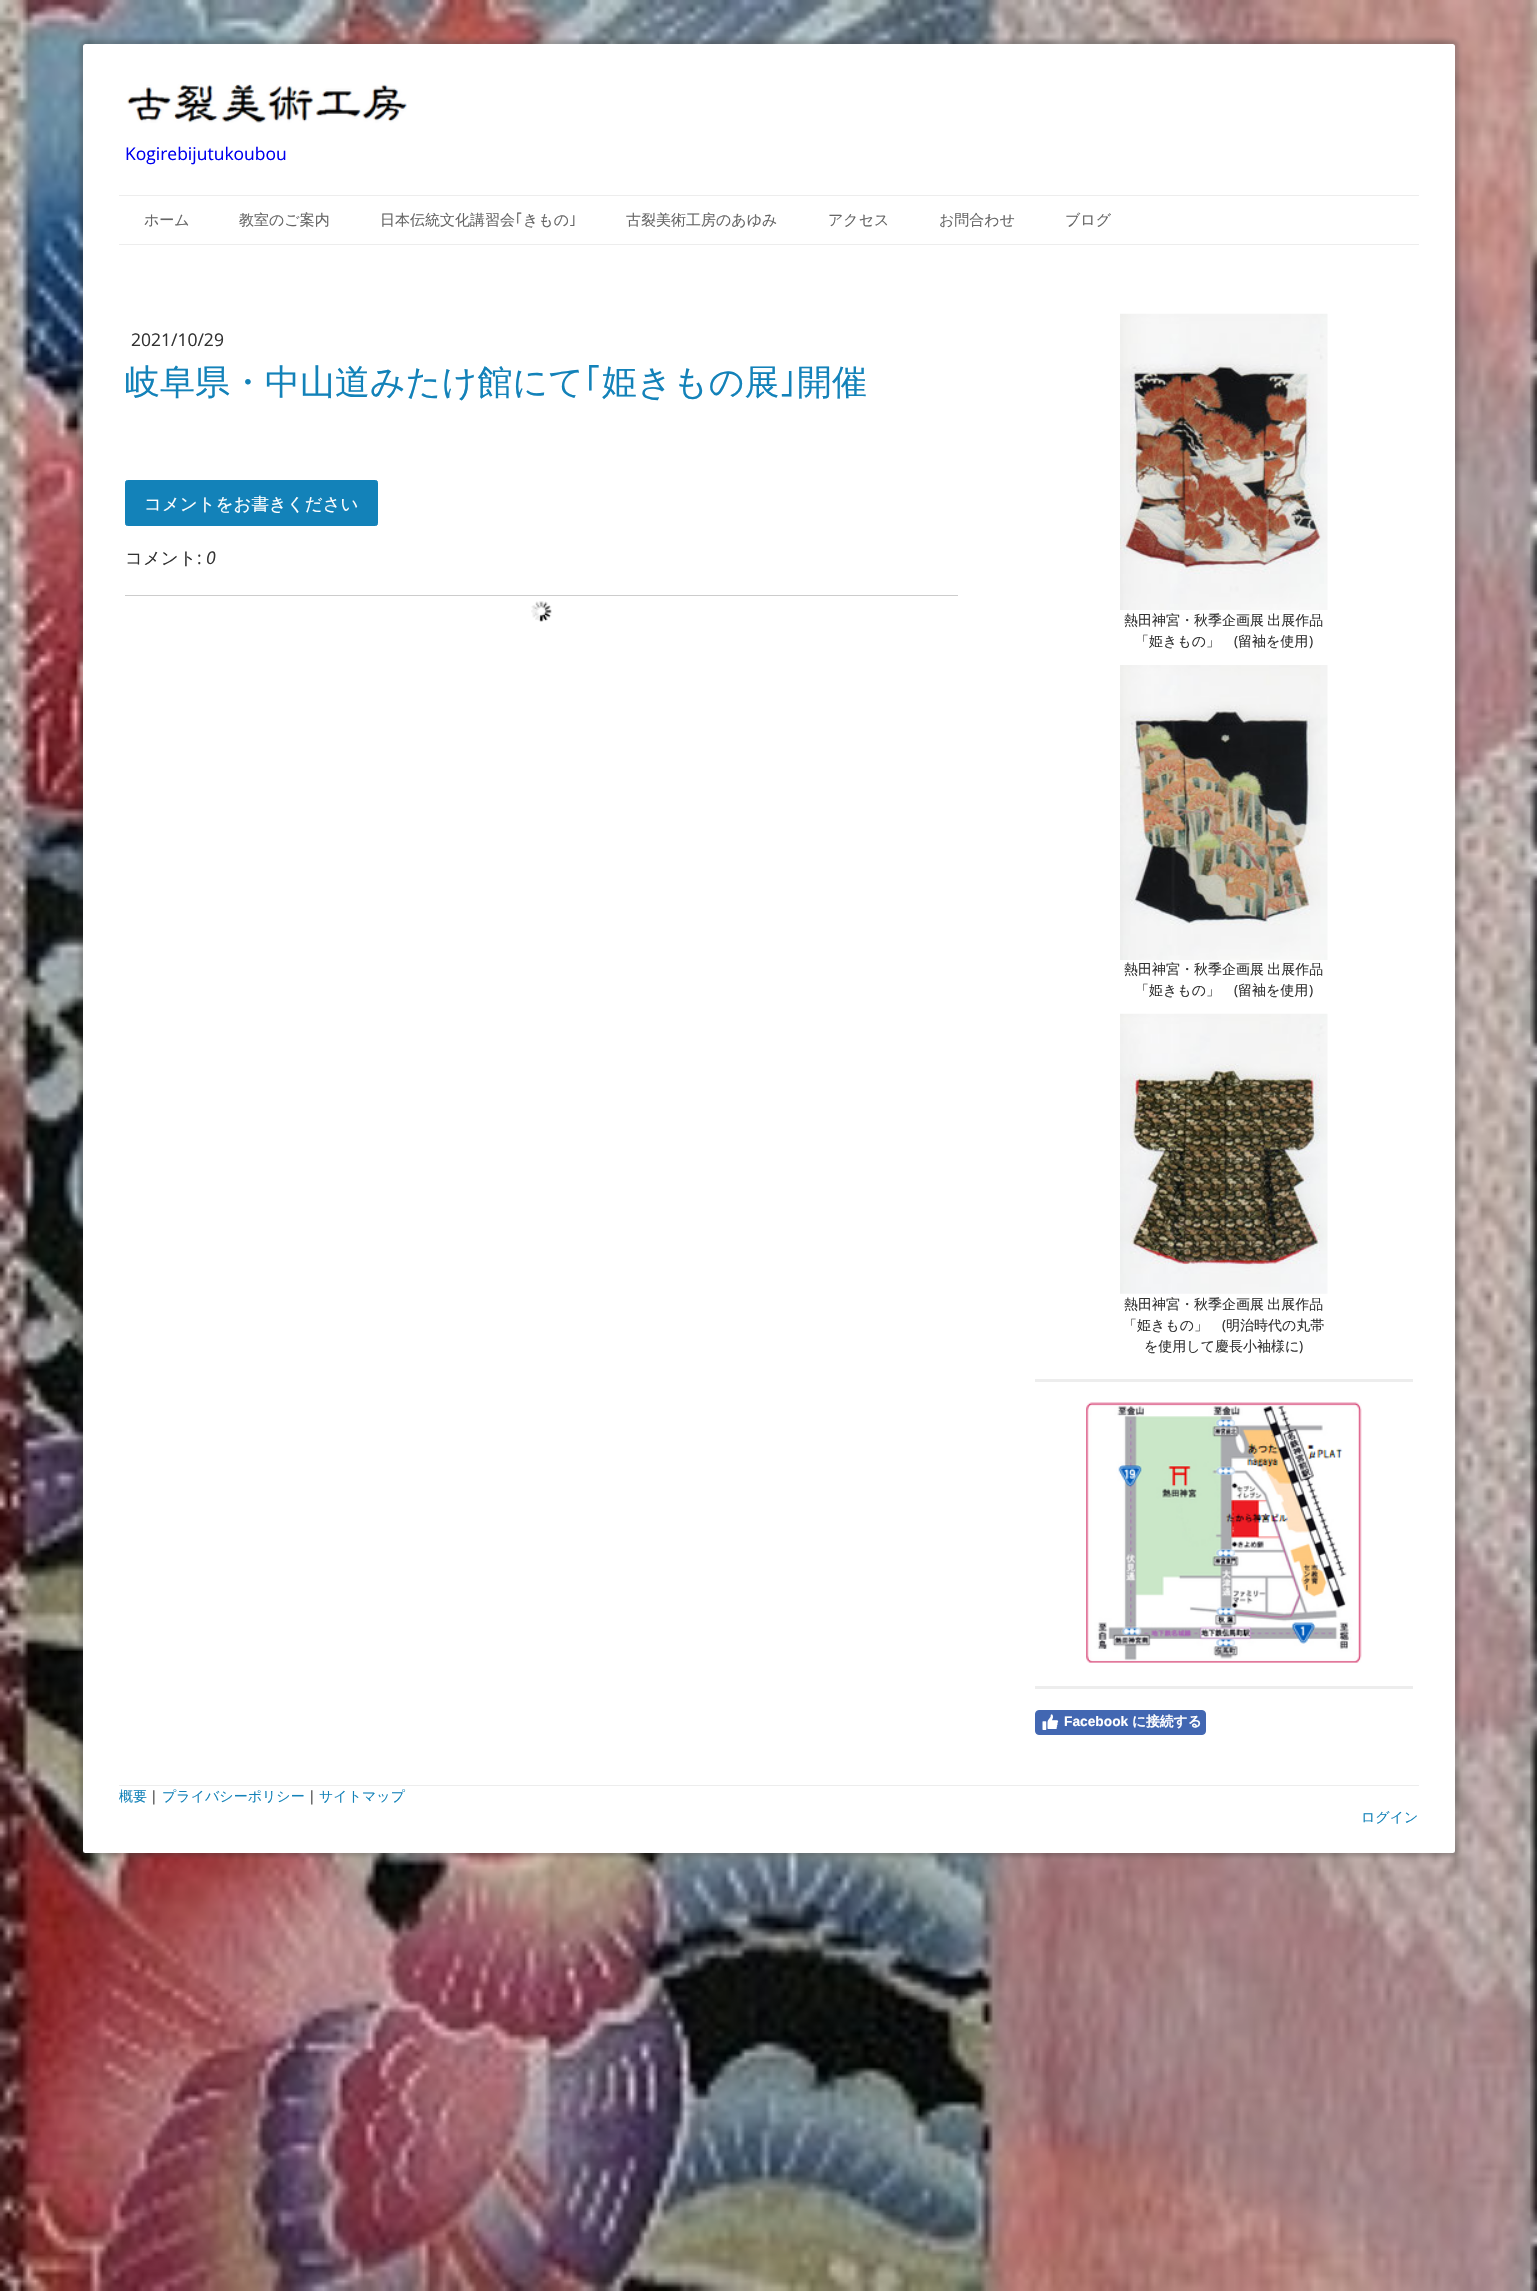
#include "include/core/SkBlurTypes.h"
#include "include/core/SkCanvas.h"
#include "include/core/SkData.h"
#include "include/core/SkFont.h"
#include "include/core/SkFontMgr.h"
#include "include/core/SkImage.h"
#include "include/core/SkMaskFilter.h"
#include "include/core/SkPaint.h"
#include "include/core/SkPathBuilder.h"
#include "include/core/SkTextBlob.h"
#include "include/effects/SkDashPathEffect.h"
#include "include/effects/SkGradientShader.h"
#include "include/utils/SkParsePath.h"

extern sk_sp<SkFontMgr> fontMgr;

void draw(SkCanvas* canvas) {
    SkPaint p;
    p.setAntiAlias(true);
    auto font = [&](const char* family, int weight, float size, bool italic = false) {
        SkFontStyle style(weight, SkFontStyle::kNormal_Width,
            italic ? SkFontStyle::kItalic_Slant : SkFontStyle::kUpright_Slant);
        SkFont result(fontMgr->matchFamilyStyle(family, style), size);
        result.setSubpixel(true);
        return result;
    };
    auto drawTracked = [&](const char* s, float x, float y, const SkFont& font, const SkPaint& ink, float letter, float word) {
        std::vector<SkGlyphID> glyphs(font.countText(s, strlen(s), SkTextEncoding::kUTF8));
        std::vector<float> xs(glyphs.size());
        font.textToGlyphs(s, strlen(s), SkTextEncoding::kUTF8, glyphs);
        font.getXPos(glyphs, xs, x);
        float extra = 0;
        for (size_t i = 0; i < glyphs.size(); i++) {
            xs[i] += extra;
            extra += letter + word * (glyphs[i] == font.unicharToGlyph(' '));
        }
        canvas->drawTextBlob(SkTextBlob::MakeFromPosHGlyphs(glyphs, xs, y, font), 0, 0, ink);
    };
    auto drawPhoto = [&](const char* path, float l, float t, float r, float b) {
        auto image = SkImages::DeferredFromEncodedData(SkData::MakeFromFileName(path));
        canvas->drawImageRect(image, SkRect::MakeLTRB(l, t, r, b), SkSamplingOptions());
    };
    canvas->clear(0xFFFFFFFF);
    drawPhoto("media/1.png", 0, 0, 1537, 2291);
    p.setColor(0x4D333333);
    p.setMaskFilter(SkMaskFilter::MakeBlur(kNormal_SkBlurStyle, 2));
    canvas->drawRoundRect(SkRect::MakeLTRB(79, 40, 1459, 1856), 6, 6, p);
    p.setMaskFilter(nullptr);
    p.setColor(0xFFFFFFFF);
    canvas->drawRoundRect(SkRect::MakeLTRB(83, 44, 1455, 1853), 2.5f, 2.5f, p);
    drawPhoto("media/2.png", 127, 84, 407, 123);
    auto font1 = font("Open Sans", 400, 17.5f);
    p.setColor(0xFF0000EE);
    canvas->drawString("Kogirebijutukoubou", 125, 160, font1, p);
    p.setColor(0xFFEDEDED);
    canvas->drawRect(SkRect::MakeLTRB(119, 195, 1419, 196), p);
    canvas->drawRect(SkRect::MakeLTRB(119, 244, 1419, 245), p);
    auto font2 = font("WenQuanYi Zen Hei", 500, 15);
    p.setColor(0xFF666666);
    {
        const struct { const char* s; float x, y; } items[] = {
            {"ホーム", 144, 225},
            {"教室のご案内", 239, 225},
            {"日本伝統文化講習会", 380, 225},
        };
        for (auto [s, x, y] : items) {
            canvas->drawString(s, x, y, font2, p);
        }
    }
    auto font3 = font("IPAPGothic", 400, 15);
    canvas->drawString("｢", 515, 225, font3, p);
    canvas->drawString("きもの", 523, 225, font2, p);
    canvas->drawString("｣", 569, 225, font3, p);
    {
        const struct { const char* s; float x, y; } items[] = {
            {"古裂美術工房のあゆみ", 626, 225},
            {"アクセス", 828, 225},
            {"お問合わせ", 939, 225},
            {"ブログ", 1065, 225},
        };
        for (auto [s, x, y] : items) {
            canvas->drawString(s, x, y, font2, p);
        }
    }
    p.setColor(0xFF333333);
    canvas->drawString("2021/10/29", 131, 346, font1, p);
    auto font4 = font("WenQuanYi Zen Hei", 500, 35);
    p.setColor(0xFF1382B9);
    canvas->drawString("岐阜県・中山道みたけ館にて", 125, 394, font4, p);
    auto font5 = font("IPAPGothic", 400, 35);
    canvas->drawString("｢", 584, 394, font5, p);
    canvas->drawString("姫きもの展", 602, 394, font4, p);
    canvas->drawString("｣", 779, 394, font5, p);
    canvas->drawString("開催", 797, 394, font4, p);
    canvas->drawRoundRect(SkRect::MakeLTRB(125.5f, 480.5f, 377.5f, 525.5f), 2, 2, p);
    p.setStyle(SkPaint::kStroke_Style);
    p.setStrokeWidth(1);
    canvas->drawRoundRect(SkRect::MakeLTRB(125.5f, 480.5f, 377.5f, 525.5f), 2, 2, p);
    auto font6 = font("WenQuanYi Zen Hei", 500, 17.5f);
    p.setStyle(SkPaint::kFill_Style);
    p.setColor(0xFFFFFFFF);
    canvas->drawString("コメントをお書きください", 144, 510, font6, p);
    p.setColor(0xFF333333);
    canvas->drawString("コメント", 125, 564, font6, p);
    canvas->drawString(":", 197, 564, font1, p);
    auto font7 = font("Open Sans", 400, 17.5f, true);
    canvas->drawString("0", 206, 564, font7, p);
    drawPhoto("media/3.png", 531, 601, 552, 622);
    p.setColor(0xFFCCCCCC);
    canvas->drawRect(SkRect::MakeLTRB(125, 595, 958, 596), p);
    drawPhoto("media/4.png", 1120, 313, 1328, 610);
    auto font8 = font("WenQuanYi Zen Hei", 500, 14);
    p.setColor(0xFF333333);
    drawTracked("熱田神宮・秋季企画展 出展作品", 1124, 625, font8, p, 0, -1);
    canvas->drawString("「姫きもの」", 1135, 646, font8, p);
    auto font9 = font("Open Sans", 400, 14);
    canvas->drawString("(", 1234, 646, font9, p);
    canvas->drawString("留袖を使用", 1238, 646, font8, p);
    canvas->drawString(")", 1309, 646, font9, p);
    drawPhoto("media/5.png", 1120, 665, 1328, 960);
    drawTracked("熱田神宮・秋季企画展 出展作品", 1124, 974, font8, p, 0, -1);
    canvas->drawString("「姫きもの」", 1135, 995, font8, p);
    canvas->drawString("(", 1234, 995, font9, p);
    canvas->drawString("留袖を使用", 1238, 995, font8, p);
    canvas->drawString(")", 1309, 995, font9, p);
    drawPhoto("media/6.png", 1120, 1013, 1328, 1294);
    drawTracked("熱田神宮・秋季企画展 出展作品", 1124, 1309, font8, p, 0, -1);
    canvas->drawString("「姫きもの」", 1123, 1330, font8, p);
    canvas->drawString("(", 1222, 1330, font9, p);
    canvas->drawString("明治時代の丸帯", 1226, 1330, font8, p);
    canvas->drawString("を使用して慶長小袖様に", 1144, 1351, font8, p);
    canvas->drawString(")", 1299, 1351, font9, p);
    p.setColor(0xFFEDEDED);
    canvas->drawRect(SkRect::MakeLTRB(1035, 1379, 1413, 1382), p);
    drawPhoto("media/7.png", 1086, 1402, 1362, 1663);
    canvas->drawRect(SkRect::MakeLTRB(1035, 1686, 1413, 1689), p);
    p.setColor(0xFF4267B2);
    canvas->drawRoundRect(SkRect::MakeLTRB(1035.5f, 1710.5f, 1205.5f, 1734.5f), 3.5f, 3.5f, p);
    p.setStyle(SkPaint::kStroke_Style);
    canvas->drawRoundRect(SkRect::MakeLTRB(1035.5f, 1710.5f, 1205.5f, 1734.5f), 3.5f, 3.5f, p);
    drawPhoto("media/8.png", 1042, 1714, 1059, 1730);
    auto font10 = font("Liberation Sans", 700, 13.75f);
    p.setStyle(SkPaint::kFill_Style);
    p.setColor(0xFFFFFFFF);
    canvas->drawString("Facebook", 1064, 1726, font10, p);
    auto font11 = font("WenQuanYi Zen Hei", 700, 13.75f);
    canvas->drawString("に接続する", 1132, 1726, font11, p);
    p.setColor(0xFFEDEDED);
    canvas->drawRect(SkRect::MakeLTRB(119, 1785, 1419, 1786), p);
    p.setColor(0xFF1382B9);
    canvas->drawString("概要", 119, 1801, font8, p);
    p.setColor(0xFF333333);
    canvas->drawString("|", 150, 1801, font9, p);
    p.setColor(0xFF1382B9);
    canvas->drawString("プライバシーポリシー", 162, 1801, font8, p);
    p.setColor(0xFF333333);
    canvas->drawString("|", 308, 1801, font9, p);
    p.setColor(0xFF1382B9);
    canvas->drawString("サイトマップ", 319, 1801, font8, p);
    canvas->drawString("ログイン", 1361, 1822, font8, p);
}
